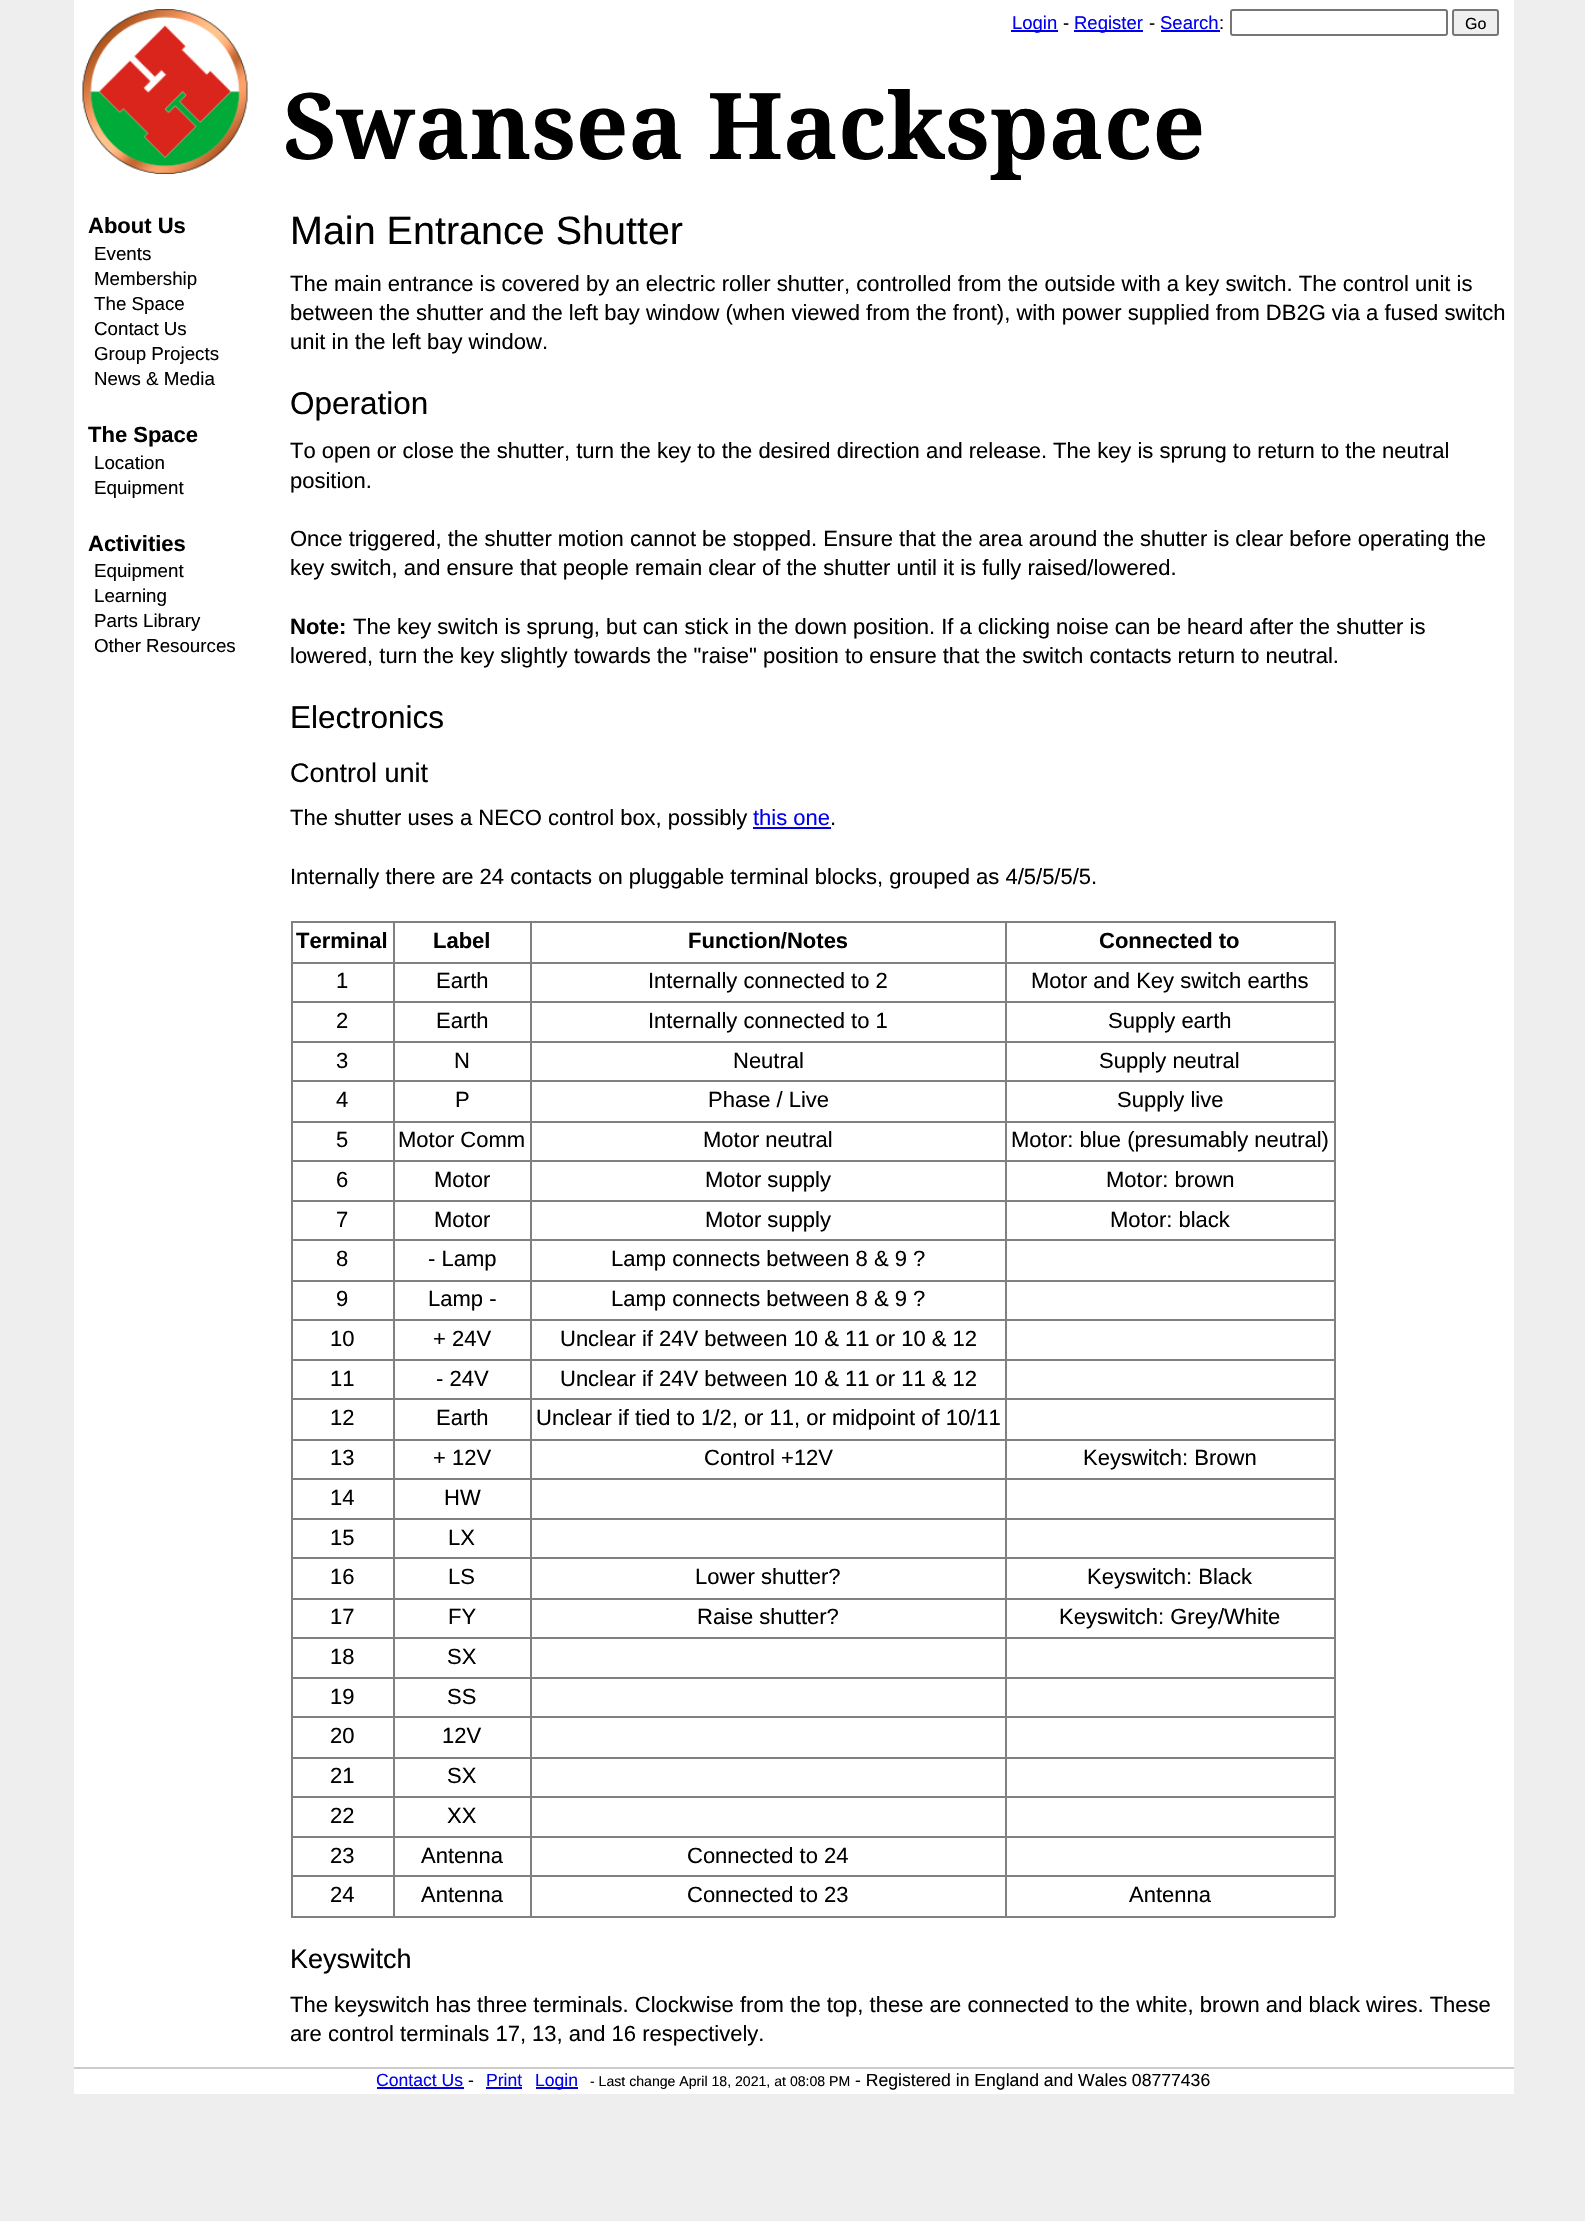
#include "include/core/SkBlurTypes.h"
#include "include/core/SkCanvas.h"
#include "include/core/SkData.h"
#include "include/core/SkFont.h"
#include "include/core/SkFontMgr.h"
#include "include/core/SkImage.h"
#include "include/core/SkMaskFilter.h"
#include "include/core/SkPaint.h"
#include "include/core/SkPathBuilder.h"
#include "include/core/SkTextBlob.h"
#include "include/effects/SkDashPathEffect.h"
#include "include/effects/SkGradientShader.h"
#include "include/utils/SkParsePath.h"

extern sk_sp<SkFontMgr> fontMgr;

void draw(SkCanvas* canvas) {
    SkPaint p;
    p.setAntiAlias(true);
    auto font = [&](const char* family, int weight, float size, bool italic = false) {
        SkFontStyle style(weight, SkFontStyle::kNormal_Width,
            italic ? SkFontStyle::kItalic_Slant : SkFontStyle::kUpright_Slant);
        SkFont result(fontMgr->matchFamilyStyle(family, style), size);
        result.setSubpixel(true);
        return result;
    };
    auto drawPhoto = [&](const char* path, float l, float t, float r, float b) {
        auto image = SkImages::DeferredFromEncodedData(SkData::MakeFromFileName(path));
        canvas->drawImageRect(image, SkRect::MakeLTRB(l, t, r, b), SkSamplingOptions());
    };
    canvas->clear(0xFFEEEEEE);
    p.setColor(0xFFFFFFFF);
    canvas->drawRect(SkRect::MakeLTRB(74, 0, 1514, 2094), p);
    p.setColor(0xFF0000EE);
    canvas->drawRect(SkRect::MakeLTRB(1011, 30, 1058, 32), p);
    auto font1 = font("Liberation Sans", 400, 18.5f);
    canvas->drawString("Login", 1012, 29, font1, p);
    p.setColor(0xFF000000);
    canvas->drawString("-", 1063, 29, font1, p);
    p.setColor(0xFF0000EE);
    canvas->drawRect(SkRect::MakeLTRB(1074, 30, 1143, 32), p);
    canvas->drawString("Register", 1074, 29, font1, p);
    p.setColor(0xFF000000);
    canvas->drawString("-", 1149, 29, font1, p);
    p.setColor(0xFF0000EE);
    canvas->drawString("Search", 1160, 29, font1, p);
    p.setColor(0xFF000000);
    canvas->drawString(":", 1219, 29, font1, p);
    p.setColor(0xFF0000EE);
    canvas->drawRect(SkRect::MakeLTRB(1161, 30, 1220, 32), p);
    p.setStyle(SkPaint::kStroke_Style);
    p.setStrokeWidth(2);
    p.setColor(0xFF767676);
    canvas->drawRoundRect(SkRect::MakeLTRB(1231, 10, 1447, 35), 2, 2, p);
    p.setStyle(SkPaint::kFill_Style);
    p.setColor(0xFFEFEFEF);
    canvas->drawRoundRect(SkRect::MakeLTRB(1453, 10, 1498, 35), 2, 2, p);
    p.setStyle(SkPaint::kStroke_Style);
    p.setColor(0xFF767676);
    canvas->drawRoundRect(SkRect::MakeLTRB(1453, 10, 1498, 35), 2, 2, p);
    auto font2 = font("Liberation Sans", 400, 16);
    p.setStyle(SkPaint::kFill_Style);
    p.setColor(0xFF000000);
    canvas->drawString("Go", 1465, 29, font2, p);
    drawPhoto("media/1.png", 82, 9, 248, 174);
    auto font3 = font("Noto Serif", 700, 92);
    canvas->drawString("Swansea Hackspace", 283, 159, font3, p);
    auto font4 = font("Liberation Sans", 700, 22);
    canvas->drawString("About Us", 88, 233, font4, p);
    auto font5 = font("Liberation Sans", 400, 18.75f);
    {
        const struct { const char* s; float x, y; } items[] = {
            {"Events", 94, 260},
            {"Membership", 94, 285},
            {"The Space", 94, 310},
            {"Contact Us", 94, 335},
            {"Group Projects", 94, 360},
            {"News & Media", 94, 385},
        };
        for (auto [s, x, y] : items) {
            canvas->drawString(s, x, y, font5, p);
        }
    }
    canvas->drawString("The Space", 88, 442, font4, p);
    canvas->drawString("Location", 94, 469, font5, p);
    canvas->drawString("Equipment", 94, 494, font5, p);
    canvas->drawString("Activities", 88, 551, font4, p);
    {
        const struct { const char* s; float x, y; } items[] = {
            {"Equipment", 94, 577},
            {"Learning", 94, 602},
            {"Parts Library", 94, 627},
            {"Other Resources", 94, 652},
        };
        for (auto [s, x, y] : items) {
            canvas->drawString(s, x, y, font5, p);
        }
    }
    auto font6 = font("Liberation Sans", 400, 39.5f);
    canvas->drawString("Main Entrance Shutter", 290, 244, font6, p);
    auto font7 = font("Liberation Sans", 400, 22);
    {
        const struct { const char* s; float x, y; } items[] = {
            {"The main entrance is covered by an electric roller shutter, controlled from the outside with a key switch. The control unit is", 290, 291},
            {"between the shutter and the left bay window (when viewed from the front), with power supplied from DB2G via a fused switch", 290, 320},
            {"unit in the left bay window.", 290, 349},
        };
        for (auto [s, x, y] : items) {
            canvas->drawString(s, x, y, font7, p);
        }
    }
    auto font8 = font("Liberation Sans", 400, 31.5f);
    canvas->drawString("Operation", 290, 414, font8, p);
    {
        const struct { const char* s; float x, y; } items[] = {
            {"To open or close the shutter, turn the key to the desired direction and release. The key is sprung to return to the neutral", 290, 458},
            {"position.", 290, 488},
            {"Once triggered, the shutter motion cannot be stopped. Ensure that the area around the shutter is clear before operating the", 290, 546},
            {"key switch, and ensure that people remain clear of the shutter until it is fully raised/lowered.", 290, 575},
        };
        for (auto [s, x, y] : items) {
            canvas->drawString(s, x, y, font7, p);
        }
    }
    canvas->drawString("Note:", 290, 634, font4, p);
    canvas->drawString("The key switch is sprung, but can stick in the down position. If a clicking noise can be heard after the shutter is", 353, 634, font7, p);
    canvas->drawString("lowered, turn the key slightly towards the \"raise\" position to ensure that the switch contacts return to neutral.", 290, 663, font7, p);
    canvas->drawString("Electronics", 290, 728, font8, p);
    auto font9 = font("Liberation Sans", 400, 27);
    canvas->drawString("Control unit", 290, 782, font9, p);
    canvas->drawString("The shutter uses a NECO control box, possibly", 290, 825, font7, p);
    p.setColor(0xFF0000EE);
    canvas->drawString("this one", 753, 825, font7, p);
    canvas->drawRect(SkRect::MakeLTRB(753, 827, 831, 829), p);
    p.setColor(0xFF000000);
    canvas->drawString(".", 830, 825, font7, p);
    canvas->drawString("Internally there are 24 contacts on pluggable terminal blocks, grouped as 4/5/5/5/5.", 290, 884, font7, p);
    {
        const struct { float l, t, r, b; SkColor color; } items[] = {
            {291, 921, 1335, 923, 0xFF808080},
            {1334, 921, 1336, 1917, 0xFF808080},
            {291, 1916, 1335, 1918, 0xFF808080},
            {291, 921, 293, 1917, 0xFF808080},
        };
        for (auto [l, t, r, b, color] : items) {
            p.setColor(color);
            canvas->drawRect(SkRect::MakeLTRB(l, t, r, b), p);
        }
    }
    p.setColor(0xFF000000);
    canvas->drawString("Terminal", 296, 948, font4, p);
    {
        const struct { float l, t, r, b; SkColor color; } items[] = {
            {1005, 962, 1335, 964, 0xFF808080},
            {1005, 1001, 1335, 1003, 0xFF808080},
            {1005, 1041, 1335, 1043, 0xFF808080},
            {1005, 1080, 1335, 1082, 0xFF808080},
            {1005, 1121, 1335, 1123, 0xFF808080},
            {1005, 1160, 1335, 1162, 0xFF808080},
            {1005, 1200, 1335, 1202, 0xFF808080},
            {1005, 1239, 1335, 1241, 0xFF808080},
            {1005, 1280, 1335, 1282, 0xFF808080},
            {1005, 1319, 1335, 1321, 0xFF808080},
            {1005, 1359, 1335, 1361, 0xFF808080},
            {1005, 1398, 1335, 1400, 0xFF808080},
            {1005, 1439, 1335, 1441, 0xFF808080},
            {1005, 1478, 1335, 1480, 0xFF808080},
            {1005, 1518, 1335, 1520, 0xFF808080},
            {1005, 1557, 1335, 1559, 0xFF808080},
            {1005, 1598, 1335, 1600, 0xFF808080},
            {1005, 1637, 1335, 1639, 0xFF808080},
            {1005, 1677, 1335, 1679, 0xFF808080},
            {1005, 1716, 1335, 1718, 0xFF808080},
            {1005, 1757, 1335, 1759, 0xFF808080},
            {1005, 1796, 1335, 1798, 0xFF808080},
            {1005, 1836, 1335, 1838, 0xFF808080},
            {1005, 1875, 1335, 1877, 0xFF808080},
            {1005, 1875, 1007, 1917, 0xFF808080},
            {530, 1875, 1007, 1877, 0xFF808080},
            {1005, 1836, 1007, 1877, 0xFF808080},
            {530, 1836, 1007, 1838, 0xFF808080},
            {1005, 1796, 1007, 1838, 0xFF808080},
            {530, 1796, 1007, 1798, 0xFF808080},
            {1005, 1757, 1007, 1797, 0xFF808080},
            {530, 1757, 1007, 1759, 0xFF808080},
            {1005, 1716, 1007, 1758, 0xFF808080},
            {530, 1716, 1007, 1718, 0xFF808080},
            {1005, 1677, 1007, 1718, 0xFF808080},
            {530, 1677, 1007, 1679, 0xFF808080},
            {1005, 1637, 1007, 1679, 0xFF808080},
            {530, 1637, 1007, 1639, 0xFF808080},
            {1005, 1598, 1007, 1638, 0xFF808080},
            {530, 1598, 1007, 1600, 0xFF808080},
            {1005, 1557, 1007, 1599, 0xFF808080},
            {530, 1557, 1007, 1559, 0xFF808080},
            {1005, 1518, 1007, 1559, 0xFF808080},
            {530, 1518, 1007, 1520, 0xFF808080},
            {1005, 1478, 1007, 1520, 0xFF808080},
            {530, 1478, 1007, 1480, 0xFF808080},
            {1005, 1439, 1007, 1479, 0xFF808080},
            {530, 1439, 1007, 1441, 0xFF808080},
            {1005, 1398, 1007, 1440, 0xFF808080},
            {530, 1398, 1007, 1400, 0xFF808080},
            {1005, 1359, 1007, 1400, 0xFF808080},
            {530, 1359, 1007, 1361, 0xFF808080},
            {1005, 1319, 1007, 1361, 0xFF808080},
            {530, 1319, 1007, 1321, 0xFF808080},
            {1005, 1280, 1007, 1320, 0xFF808080},
            {530, 1280, 1007, 1282, 0xFF808080},
            {1005, 1239, 1007, 1281, 0xFF808080},
            {530, 1239, 1007, 1241, 0xFF808080},
            {1005, 1200, 1007, 1241, 0xFF808080},
            {530, 1200, 1007, 1202, 0xFF808080},
            {1005, 1160, 1007, 1202, 0xFF808080},
            {530, 1160, 1007, 1162, 0xFF808080},
            {1005, 1121, 1007, 1161, 0xFF808080},
            {530, 1121, 1007, 1123, 0xFF808080},
            {1005, 1080, 1007, 1122, 0xFF808080},
            {530, 1080, 1007, 1082, 0xFF808080},
            {1005, 1041, 1007, 1082, 0xFF808080},
            {530, 1041, 1007, 1043, 0xFF808080},
            {1005, 1001, 1007, 1043, 0xFF808080},
            {530, 1001, 1007, 1003, 0xFF808080},
            {1005, 962, 1007, 1002, 0xFF808080},
            {530, 962, 1007, 964, 0xFF808080},
            {530, 1875, 532, 1917, 0xFF808080},
            {393, 1875, 531, 1877, 0xFF808080},
            {530, 1836, 532, 1877, 0xFF808080},
            {393, 1836, 531, 1838, 0xFF808080},
            {530, 1796, 532, 1838, 0xFF808080},
            {393, 1796, 531, 1798, 0xFF808080},
            {530, 1757, 532, 1797, 0xFF808080},
            {393, 1757, 531, 1759, 0xFF808080},
            {530, 1716, 532, 1758, 0xFF808080},
            {393, 1716, 531, 1718, 0xFF808080},
            {530, 1677, 532, 1718, 0xFF808080},
            {393, 1677, 531, 1679, 0xFF808080},
            {530, 1637, 532, 1679, 0xFF808080},
            {393, 1637, 531, 1639, 0xFF808080},
            {530, 1598, 532, 1638, 0xFF808080},
            {393, 1598, 531, 1600, 0xFF808080},
            {530, 1557, 532, 1599, 0xFF808080},
            {393, 1557, 531, 1559, 0xFF808080},
            {530, 1518, 532, 1559, 0xFF808080},
            {393, 1518, 531, 1520, 0xFF808080},
            {530, 1478, 532, 1520, 0xFF808080},
            {393, 1478, 531, 1480, 0xFF808080},
            {530, 1439, 532, 1479, 0xFF808080},
            {393, 1439, 531, 1441, 0xFF808080},
            {530, 1398, 532, 1440, 0xFF808080},
            {393, 1398, 531, 1400, 0xFF808080},
            {530, 1359, 532, 1400, 0xFF808080},
            {393, 1359, 531, 1361, 0xFF808080},
            {530, 1319, 532, 1361, 0xFF808080},
            {393, 1319, 531, 1321, 0xFF808080},
            {530, 1280, 532, 1320, 0xFF808080},
            {393, 1280, 531, 1282, 0xFF808080},
            {530, 1239, 532, 1281, 0xFF808080},
            {393, 1239, 531, 1241, 0xFF808080},
            {530, 1200, 532, 1241, 0xFF808080},
            {393, 1200, 531, 1202, 0xFF808080},
            {530, 1160, 532, 1202, 0xFF808080},
            {393, 1160, 531, 1162, 0xFF808080},
            {530, 1121, 532, 1161, 0xFF808080},
            {393, 1121, 531, 1123, 0xFF808080},
            {530, 1080, 532, 1122, 0xFF808080},
            {393, 1080, 531, 1082, 0xFF808080},
            {530, 1041, 532, 1082, 0xFF808080},
            {393, 1041, 531, 1043, 0xFF808080},
            {530, 1001, 532, 1043, 0xFF808080},
            {393, 1001, 531, 1003, 0xFF808080},
            {530, 962, 532, 1002, 0xFF808080},
            {393, 962, 531, 964, 0xFF808080},
            {393, 1875, 395, 1917, 0xFF808080},
            {291, 1875, 395, 1877, 0xFF808080},
            {393, 1836, 395, 1877, 0xFF808080},
            {291, 1836, 395, 1838, 0xFF808080},
            {393, 1796, 395, 1838, 0xFF808080},
            {291, 1796, 395, 1798, 0xFF808080},
            {393, 1757, 395, 1797, 0xFF808080},
            {291, 1757, 395, 1759, 0xFF808080},
            {393, 1716, 395, 1758, 0xFF808080},
            {291, 1716, 395, 1718, 0xFF808080},
            {393, 1677, 395, 1718, 0xFF808080},
            {291, 1677, 395, 1679, 0xFF808080},
            {393, 1637, 395, 1679, 0xFF808080},
            {291, 1637, 395, 1639, 0xFF808080},
            {393, 1598, 395, 1638, 0xFF808080},
            {291, 1598, 395, 1600, 0xFF808080},
            {393, 1557, 395, 1599, 0xFF808080},
            {291, 1557, 395, 1559, 0xFF808080},
            {393, 1518, 395, 1559, 0xFF808080},
            {291, 1518, 395, 1520, 0xFF808080},
            {393, 1478, 395, 1520, 0xFF808080},
            {291, 1478, 395, 1480, 0xFF808080},
            {393, 1439, 395, 1479, 0xFF808080},
            {291, 1439, 395, 1441, 0xFF808080},
            {393, 1398, 395, 1440, 0xFF808080},
            {291, 1398, 395, 1400, 0xFF808080},
            {393, 1359, 395, 1400, 0xFF808080},
            {291, 1359, 395, 1361, 0xFF808080},
            {393, 1319, 395, 1361, 0xFF808080},
            {291, 1319, 395, 1321, 0xFF808080},
            {393, 1280, 395, 1320, 0xFF808080},
            {291, 1280, 395, 1282, 0xFF808080},
            {393, 1239, 395, 1281, 0xFF808080},
            {291, 1239, 395, 1241, 0xFF808080},
            {393, 1200, 395, 1241, 0xFF808080},
            {291, 1200, 395, 1202, 0xFF808080},
            {393, 1160, 395, 1202, 0xFF808080},
            {291, 1160, 395, 1162, 0xFF808080},
            {393, 1121, 395, 1161, 0xFF808080},
            {291, 1121, 395, 1123, 0xFF808080},
            {393, 1080, 395, 1122, 0xFF808080},
            {291, 1080, 395, 1082, 0xFF808080},
            {393, 1041, 395, 1082, 0xFF808080},
            {291, 1041, 395, 1043, 0xFF808080},
            {393, 1001, 395, 1043, 0xFF808080},
            {291, 1001, 395, 1003, 0xFF808080},
            {393, 962, 395, 1002, 0xFF808080},
            {291, 962, 395, 964, 0xFF808080},
            {393, 921, 395, 963, 0xFF808080},
        };
        for (auto [l, t, r, b, color] : items) {
            p.setColor(color);
            canvas->drawRect(SkRect::MakeLTRB(l, t, r, b), p);
        }
    }
    p.setColor(0xFF000000);
    canvas->drawString("Label", 433, 948, font4, p);
    p.setColor(0xFF808080);
    canvas->drawRect(SkRect::MakeLTRB(530, 921, 532, 963), p);
    p.setColor(0xFF000000);
    canvas->drawString("Function/Notes", 688, 948, font4, p);
    p.setColor(0xFF808080);
    canvas->drawRect(SkRect::MakeLTRB(1005, 921, 1007, 963), p);
    p.setColor(0xFF000000);
    canvas->drawString("Connected to", 1099, 948, font4, p);
    {
        const struct { const char* s; float x, y; } items[] = {
            {"1", 336, 988},
            {"Earth", 436, 988},
            {"Internally connected to 2", 648, 988},
            {"Motor and Key switch earths", 1031, 988},
            {"2", 336, 1028},
            {"Earth", 436, 1028},
            {"Internally connected to 1", 648, 1028},
            {"Supply earth", 1108, 1028},
            {"3", 336, 1068},
            {"N", 454, 1068},
            {"Neutral", 733, 1068},
            {"Supply neutral", 1099, 1068},
            {"4", 336, 1107},
            {"P", 455, 1107},
            {"Phase / Live", 708, 1107},
            {"Supply live", 1117, 1107},
            {"5", 336, 1147},
            {"Motor Comm", 398, 1147},
            {"Motor neutral", 703, 1147},
            {"Motor: blue (presumably neutral)", 1011, 1147},
            {"6", 336, 1187},
            {"Motor", 434, 1187},
            {"Motor supply", 705, 1187},
            {"Motor: brown", 1106, 1187},
            {"7", 336, 1227},
            {"Motor", 434, 1227},
            {"Motor supply", 705, 1227},
            {"Motor: black", 1110, 1227},
            {"8", 336, 1266},
            {"- Lamp", 428, 1266},
            {"Lamp connects between 8 & 9 ?", 611, 1266},
            {"9", 336, 1306},
            {"Lamp -", 428, 1306},
            {"Lamp connects between 8 & 9 ?", 611, 1306},
            {"10", 330, 1346},
            {"+ 24V", 433, 1346},
            {"Unclear if 24V between 10 & 11 or 10 & 12", 560, 1346},
            {"11", 330, 1386},
            {"- 24V", 436, 1386},
            {"Unclear if 24V between 10 & 11 or 11 & 12", 560, 1386},
            {"12", 330, 1425},
            {"Earth", 436, 1425},
            {"Unclear if tied to 1/2, or 11, or midpoint of 10/11", 536, 1425},
            {"13", 330, 1465},
            {"+ 12V", 433, 1465},
            {"Control +12V", 704, 1465},
            {"Keyswitch: Brown", 1083, 1465},
            {"14", 330, 1505},
            {"HW", 444, 1505},
            {"15", 330, 1545},
            {"LX", 448, 1545},
            {"16", 330, 1584},
            {"LS", 448, 1584},
            {"Lower shutter?", 695, 1584},
            {"Keyswitch: Black", 1087, 1584},
            {"17", 330, 1624},
            {"FY", 448, 1624},
            {"Raise shutter?", 697, 1624},
            {"Keyswitch: Grey/White", 1059, 1624},
            {"18", 330, 1664},
            {"SX", 447, 1664},
            {"19", 330, 1704},
            {"SS", 447, 1704},
            {"20", 330, 1743},
            {"12V", 442, 1743},
            {"21", 330, 1783},
            {"SX", 447, 1783},
            {"22", 330, 1823},
            {"XX", 447, 1823},
            {"23", 330, 1863},
            {"Antenna", 421, 1863},
            {"Connected to 24", 687, 1863},
            {"24", 330, 1902},
            {"Antenna", 421, 1902},
            {"Connected to 23", 687, 1902},
            {"Antenna", 1129, 1902},
        };
        for (auto [s, x, y] : items) {
            canvas->drawString(s, x, y, font7, p);
        }
    }
    canvas->drawString("Keyswitch", 290, 1968, font9, p);
    canvas->drawString("The keyswitch has three terminals. Clockwise from the top, these are connected to the white, brown and black wires. These", 290, 2012, font7, p);
    canvas->drawString("are control terminals 17, 13, and 16 respectively.", 290, 2041, font7, p);
    p.setColor(0xFFCCCCCC);
    canvas->drawRect(SkRect::MakeLTRB(74, 2067, 1514, 2069), p);
    auto font10 = font("Liberation Sans", 400, 17.6f);
    p.setColor(0xFF0000EE);
    canvas->drawString("Contact Us", 376, 2086, font10, p);
    canvas->drawRect(SkRect::MakeLTRB(377, 2087, 464, 2089), p);
    p.setColor(0xFF000000);
    canvas->drawString("-", 468, 2086, font10, p);
    p.setColor(0xFF0000EE);
    canvas->drawString("Print", 486, 2086, font10, p);
    canvas->drawRect(SkRect::MakeLTRB(486, 2087, 522, 2089), p);
    canvas->drawRect(SkRect::MakeLTRB(536, 2087, 578, 2089), p);
    canvas->drawString("Login", 535, 2086, font10, p);
    auto font11 = font("Liberation Sans", 400, 14.1f);
    p.setColor(0xFF000000);
    canvas->drawString("- Last change April 18, 2021, at 08:08 PM", 590, 2086, font11, p);
    canvas->drawString("- Registered in England and Wales 08777436", 855, 2086, font10, p);
}
